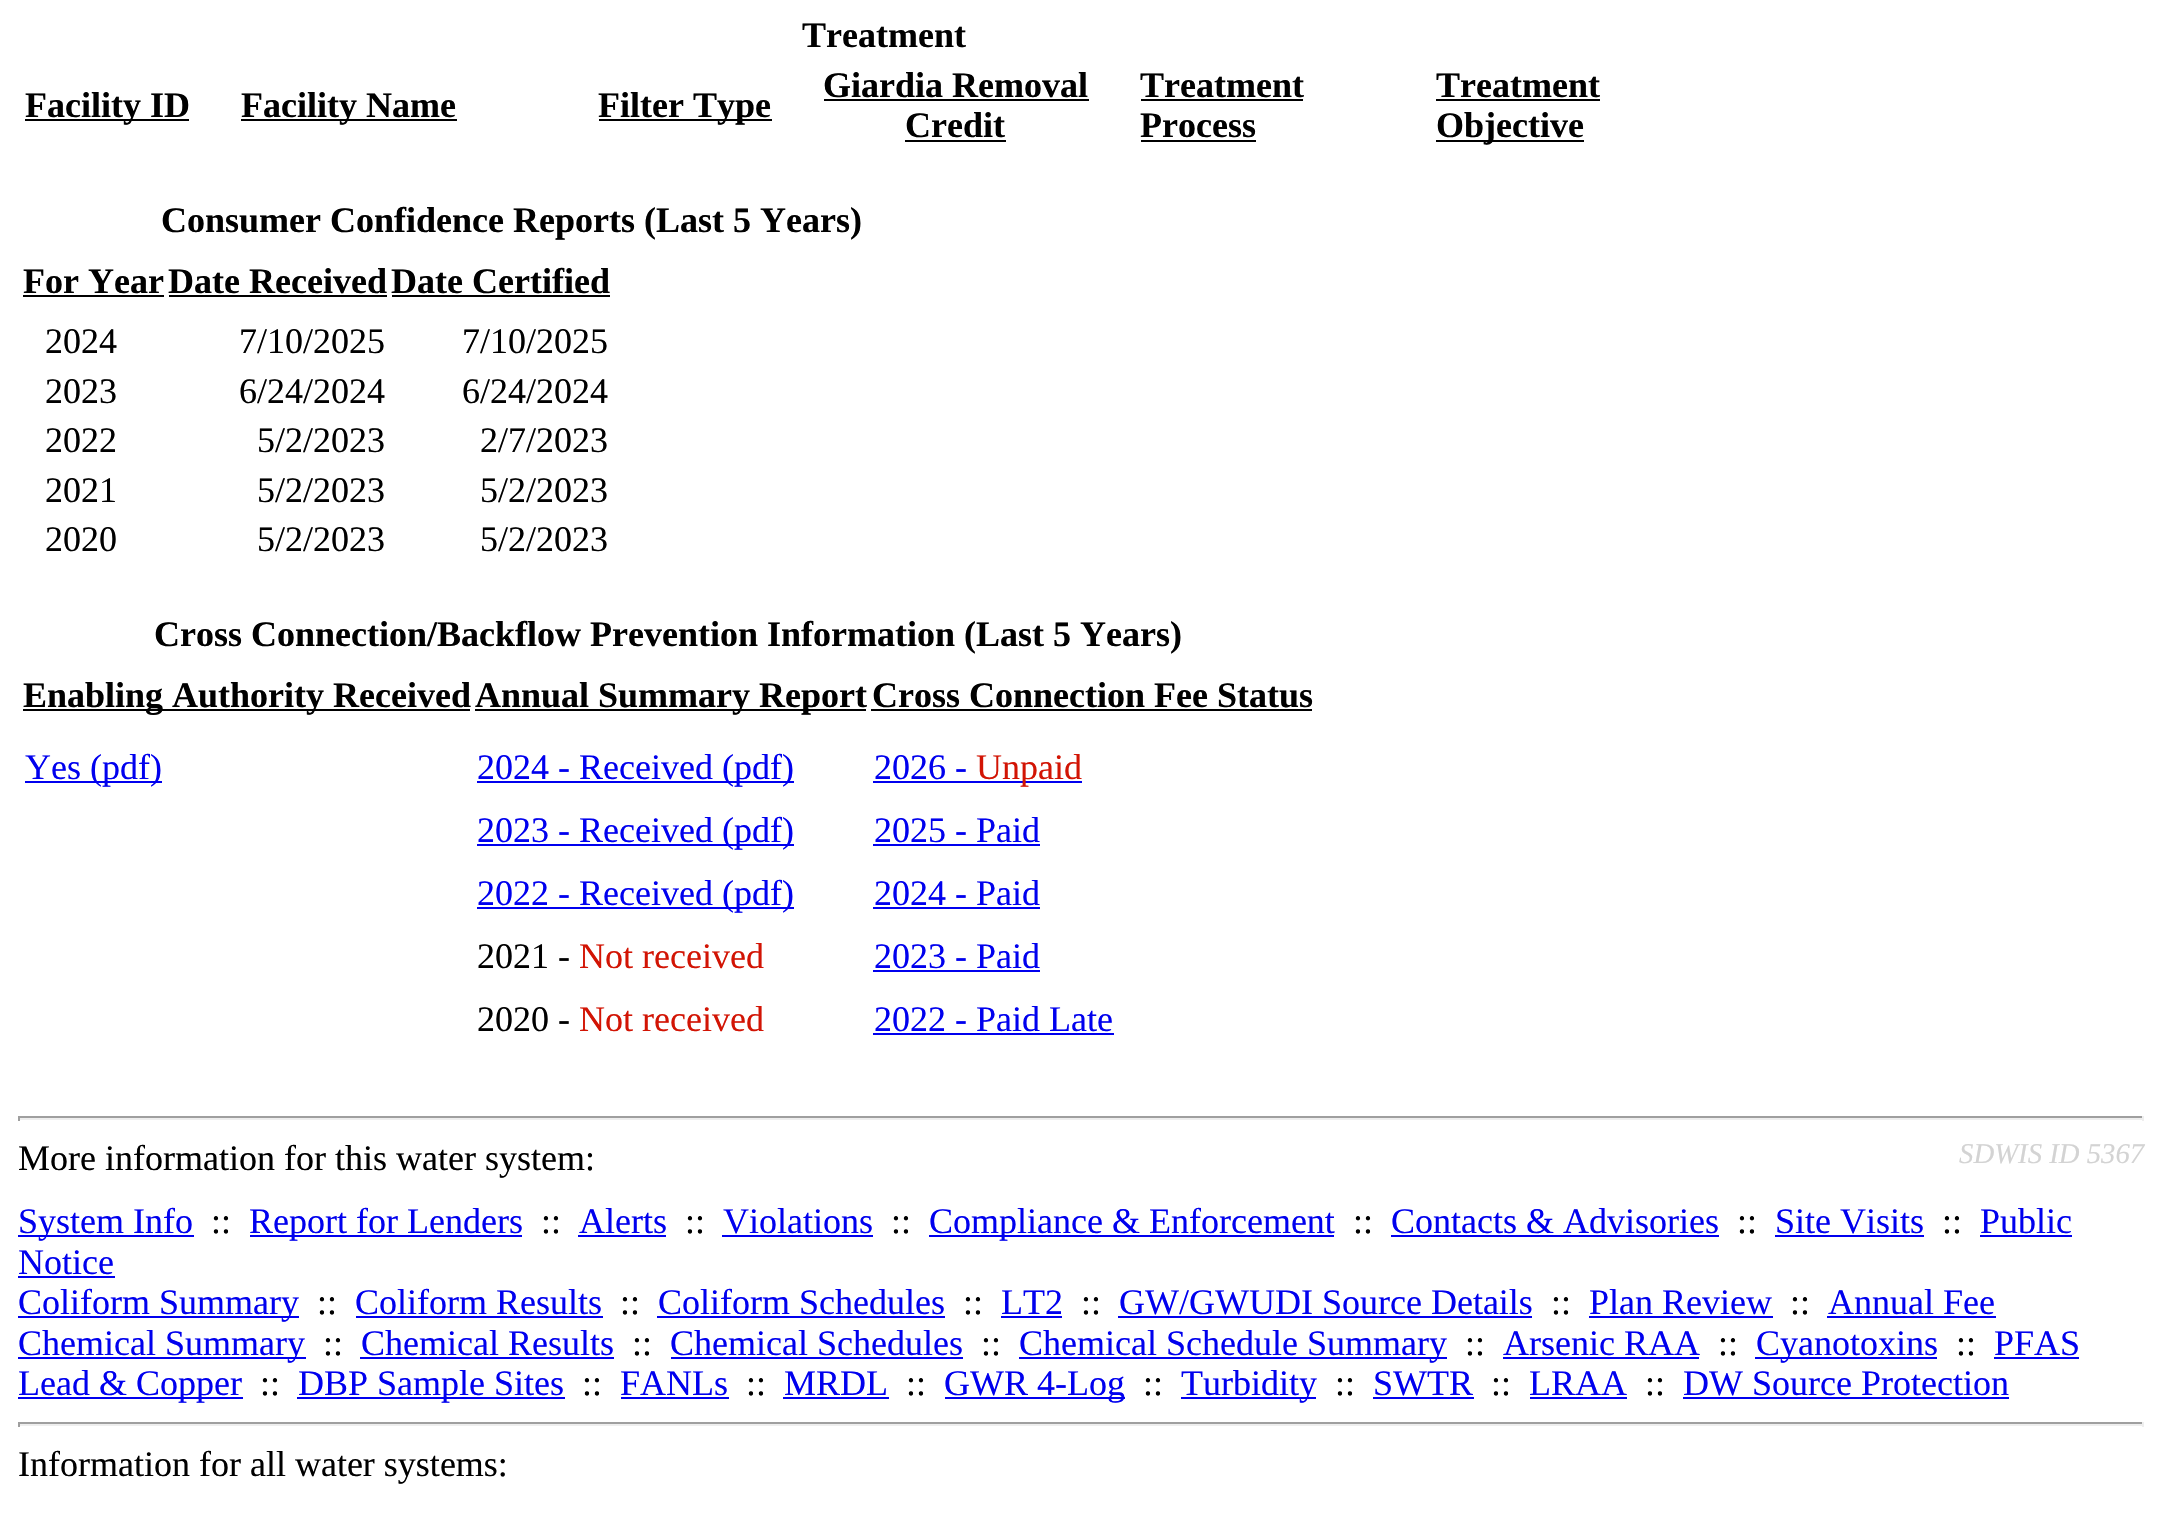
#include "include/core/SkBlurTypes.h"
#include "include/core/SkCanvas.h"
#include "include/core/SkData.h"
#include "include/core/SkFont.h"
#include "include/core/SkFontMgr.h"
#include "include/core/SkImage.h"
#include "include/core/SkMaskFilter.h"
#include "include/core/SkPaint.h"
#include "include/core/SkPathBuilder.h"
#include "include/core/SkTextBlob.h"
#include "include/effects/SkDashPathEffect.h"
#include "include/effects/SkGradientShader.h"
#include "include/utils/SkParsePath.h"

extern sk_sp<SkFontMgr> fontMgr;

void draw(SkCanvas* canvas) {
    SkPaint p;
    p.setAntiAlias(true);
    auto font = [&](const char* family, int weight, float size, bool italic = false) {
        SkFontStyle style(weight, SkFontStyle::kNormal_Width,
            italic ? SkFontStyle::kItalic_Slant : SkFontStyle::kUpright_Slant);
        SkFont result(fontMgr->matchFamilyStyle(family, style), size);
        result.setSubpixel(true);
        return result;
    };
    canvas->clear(0xFFFFFFFF);
    auto font1 = font("Liberation Serif", 700, 36);
    p.setColor(0xFF000000);
    canvas->drawString("Treatment", 802, 47, font1, p);
    canvas->drawRect(SkRect::MakeLTRB(25, 119, 189, 121), p);
    canvas->drawString("Facility ID", 25, 117, font1, p);
    canvas->drawRect(SkRect::MakeLTRB(241, 119, 457, 121), p);
    canvas->drawString("Facility Name", 241, 117, font1, p);
    canvas->drawRect(SkRect::MakeLTRB(599, 119, 772, 121), p);
    canvas->drawString("Filter Type", 598, 117, font1, p);
    canvas->drawString("Giardia Removal", 823, 97, font1, p);
    canvas->drawRect(SkRect::MakeLTRB(824, 99, 1089, 101), p);
    canvas->drawString("Credit", 905, 137, font1, p);
    canvas->drawRect(SkRect::MakeLTRB(905, 140, 1006, 142), p);
    canvas->drawString("Treatment", 1140, 97, font1, p);
    canvas->drawRect(SkRect::MakeLTRB(1141, 99, 1303, 101), p);
    canvas->drawString("Process", 1140, 137, font1, p);
    canvas->drawRect(SkRect::MakeLTRB(1141, 140, 1256, 142), p);
    canvas->drawString("Treatment", 1436, 97, font1, p);
    canvas->drawRect(SkRect::MakeLTRB(1436, 99, 1600, 101), p);
    canvas->drawRect(SkRect::MakeLTRB(1436, 140, 1584, 142), p);
    {
        const struct { const char* s; float x, y; } items[] = {
            {"Objective", 1436, 137},
            {"Consumer Confidence Reports (Last 5 Years)", 161, 232},
            {"For Year", 23, 293},
        };
        for (auto [s, x, y] : items) {
            canvas->drawString(s, x, y, font1, p);
        }
    }
    canvas->drawRect(SkRect::MakeLTRB(23, 295, 164, 297), p);
    canvas->drawString("Date Received", 168, 293, font1, p);
    canvas->drawRect(SkRect::MakeLTRB(169, 295, 387, 297), p);
    canvas->drawString("Date Certified", 391, 293, font1, p);
    canvas->drawRect(SkRect::MakeLTRB(392, 295, 610, 297), p);
    auto font2 = font("Liberation Serif", 400, 36);
    {
        const struct { const char* s; float x, y; } items[] = {
            {"2024", 45, 353},
            {"7/10/2025", 239, 353},
            {"7/10/2025", 462, 353},
            {"2023", 45, 403},
            {"6/24/2024", 239, 403},
            {"6/24/2024", 462, 403},
            {"2022", 45, 452},
            {"5/2/2023", 257, 452},
            {"2/7/2023", 480, 452},
            {"2021", 45, 502},
            {"5/2/2023", 257, 502},
            {"5/2/2023", 480, 502},
            {"2020", 45, 551},
            {"5/2/2023", 257, 551},
            {"5/2/2023", 480, 551},
        };
        for (auto [s, x, y] : items) {
            canvas->drawString(s, x, y, font2, p);
        }
    }
    canvas->drawString("Cross Connection/Backflow Prevention Information (Last 5 Years)", 154, 646, font1, p);
    canvas->drawRect(SkRect::MakeLTRB(23, 709, 470, 711), p);
    canvas->drawString("Enabling Authority Received", 23, 707, font1, p);
    canvas->drawRect(SkRect::MakeLTRB(475, 709, 866, 711), p);
    canvas->drawString("Annual Summary Report", 475, 707, font1, p);
    canvas->drawString("Cross Connection Fee Status", 872, 707, font1, p);
    canvas->drawRect(SkRect::MakeLTRB(871, 709, 1312, 711), p);
    p.setColor(0xFF0000EE);
    canvas->drawRect(SkRect::MakeLTRB(25, 781, 162, 783), p);
    canvas->drawString("Yes (pdf)", 25, 779, font2, p);
    canvas->drawRect(SkRect::MakeLTRB(477, 781, 794, 783), p);
    canvas->drawString("2024 - Received (pdf)", 477, 779, font2, p);
    canvas->drawRect(SkRect::MakeLTRB(477, 844, 794, 846), p);
    canvas->drawString("2023 - Received (pdf)", 477, 842, font2, p);
    canvas->drawRect(SkRect::MakeLTRB(477, 907, 794, 909), p);
    canvas->drawString("2022 - Received (pdf)", 477, 905, font2, p);
    p.setColor(0xFF000000);
    canvas->drawString("2021 -", 477, 968, font2, p);
    p.setColor(0xFFD21404);
    canvas->drawString("Not received", 579, 968, font2, p);
    p.setColor(0xFF000000);
    canvas->drawString("2020 -", 477, 1031, font2, p);
    p.setColor(0xFFD21404);
    canvas->drawString("Not received", 579, 1031, font2, p);
    p.setColor(0xFF0000EE);
    canvas->drawString("2026 -", 874, 779, font2, p);
    canvas->drawRect(SkRect::MakeLTRB(873, 781, 1082, 783), p);
    p.setColor(0xFFD21404);
    canvas->drawString("Unpaid", 976, 779, font2, p);
    p.setColor(0xFF0000EE);
    canvas->drawString("2025 - Paid", 874, 842, font2, p);
    canvas->drawRect(SkRect::MakeLTRB(873, 844, 1040, 846), p);
    canvas->drawString("2024 - Paid", 874, 905, font2, p);
    canvas->drawRect(SkRect::MakeLTRB(873, 907, 1040, 909), p);
    canvas->drawString("2023 - Paid", 874, 968, font2, p);
    canvas->drawRect(SkRect::MakeLTRB(873, 970, 1040, 972), p);
    canvas->drawString("2022 - Paid Late", 874, 1031, font2, p);
    {
        const struct { float l, t, r, b; SkColor color; } items[] = {
            {873, 1033, 1114, 1035, 0xFF0000EE},
            {18, 1116, 2144, 1118, 0xFF9F9F9F},
            {2142, 1116, 2144, 1121, 0xFFEEEEEE},
            {18, 1118, 2144, 1120, 0xFFEEEEEE},
            {18, 1116, 20, 1121, 0xFF9F9F9F},
        };
        for (auto [l, t, r, b, color] : items) {
            p.setColor(color);
            canvas->drawRect(SkRect::MakeLTRB(l, t, r, b), p);
        }
    }
    p.setColor(0xFF000000);
    canvas->drawString("More information for this water system:", 18, 1170, font2, p);
    auto font3 = font("Liberation Serif", 400, 28.75f, true);
    p.setColor(0xFFD3D3D3);
    canvas->drawString("SDWIS ID 5367", 1959, 1163, font3, p);
    p.setColor(0xFF0000EE);
    canvas->drawRect(SkRect::MakeLTRB(18, 1235, 194, 1237), p);
    canvas->drawString("System Info", 18, 1233, font2, p);
    p.setColor(0xFF000000);
    canvas->drawString("::", 211, 1233, font2, p);
    p.setColor(0xFF0000EE);
    canvas->drawRect(SkRect::MakeLTRB(250, 1235, 522, 1237), p);
    canvas->drawString("Report for Lenders", 249, 1233, font2, p);
    p.setColor(0xFF000000);
    canvas->drawString("::", 541, 1233, font2, p);
    p.setColor(0xFF0000EE);
    canvas->drawString("Alerts", 579, 1233, font2, p);
    canvas->drawRect(SkRect::MakeLTRB(578, 1235, 666, 1237), p);
    p.setColor(0xFF000000);
    canvas->drawString("::", 685, 1233, font2, p);
    p.setColor(0xFF0000EE);
    canvas->drawString("Violations", 723, 1233, font2, p);
    canvas->drawRect(SkRect::MakeLTRB(722, 1235, 873, 1237), p);
    p.setColor(0xFF000000);
    canvas->drawString("::", 891, 1233, font2, p);
    p.setColor(0xFF0000EE);
    canvas->drawRect(SkRect::MakeLTRB(929, 1235, 1334, 1237), p);
    canvas->drawString("Compliance & Enforcement", 929, 1233, font2, p);
    p.setColor(0xFF000000);
    canvas->drawString("::", 1353, 1233, font2, p);
    p.setColor(0xFF0000EE);
    canvas->drawString("Contacts & Advisories", 1391, 1233, font2, p);
    canvas->drawRect(SkRect::MakeLTRB(1391, 1235, 1719, 1237), p);
    p.setColor(0xFF000000);
    canvas->drawString("::", 1737, 1233, font2, p);
    p.setColor(0xFF0000EE);
    canvas->drawString("Site Visits", 1775, 1233, font2, p);
    canvas->drawRect(SkRect::MakeLTRB(1775, 1235, 1924, 1237), p);
    p.setColor(0xFF000000);
    canvas->drawString("::", 1942, 1233, font2, p);
    p.setColor(0xFF0000EE);
    canvas->drawString("Public", 1980, 1233, font2, p);
    canvas->drawRect(SkRect::MakeLTRB(1980, 1235, 2072, 1237), p);
    canvas->drawString("Notice", 18, 1274, font2, p);
    canvas->drawRect(SkRect::MakeLTRB(18, 1276, 115, 1278), p);
    canvas->drawRect(SkRect::MakeLTRB(18, 1316, 299, 1318), p);
    canvas->drawString("Coliform Summary", 18, 1314, font2, p);
    p.setColor(0xFF000000);
    canvas->drawString("::", 317, 1314, font2, p);
    p.setColor(0xFF0000EE);
    canvas->drawString("Coliform Results", 355, 1314, font2, p);
    canvas->drawRect(SkRect::MakeLTRB(356, 1316, 603, 1318), p);
    p.setColor(0xFF000000);
    canvas->drawString("::", 620, 1314, font2, p);
    p.setColor(0xFF0000EE);
    canvas->drawString("Coliform Schedules", 658, 1314, font2, p);
    canvas->drawRect(SkRect::MakeLTRB(657, 1316, 945, 1318), p);
    p.setColor(0xFF000000);
    canvas->drawString("::", 963, 1314, font2, p);
    p.setColor(0xFF0000EE);
    canvas->drawString("LT2", 1001, 1314, font2, p);
    canvas->drawRect(SkRect::MakeLTRB(1001, 1316, 1062, 1318), p);
    p.setColor(0xFF000000);
    canvas->drawString("::", 1081, 1314, font2, p);
    p.setColor(0xFF0000EE);
    canvas->drawString("GW/GWUDI Source Details", 1119, 1314, font2, p);
    canvas->drawRect(SkRect::MakeLTRB(1118, 1316, 1532, 1318), p);
    p.setColor(0xFF000000);
    canvas->drawString("::", 1551, 1314, font2, p);
    p.setColor(0xFF0000EE);
    canvas->drawString("Plan Review", 1589, 1314, font2, p);
    canvas->drawRect(SkRect::MakeLTRB(1589, 1316, 1773, 1318), p);
    p.setColor(0xFF000000);
    canvas->drawString("::", 1790, 1314, font2, p);
    p.setColor(0xFF0000EE);
    canvas->drawString("Annual Fee", 1828, 1314, font2, p);
    canvas->drawRect(SkRect::MakeLTRB(1827, 1316, 1996, 1318), p);
    canvas->drawRect(SkRect::MakeLTRB(18, 1357, 306, 1359), p);
    canvas->drawString("Chemical Summary", 18, 1355, font2, p);
    p.setColor(0xFF000000);
    canvas->drawString("::", 323, 1355, font2, p);
    p.setColor(0xFF0000EE);
    canvas->drawString("Chemical Results", 361, 1355, font2, p);
    canvas->drawRect(SkRect::MakeLTRB(360, 1357, 614, 1359), p);
    p.setColor(0xFF000000);
    canvas->drawString("::", 632, 1355, font2, p);
    p.setColor(0xFF0000EE);
    canvas->drawString("Chemical Schedules", 670, 1355, font2, p);
    canvas->drawRect(SkRect::MakeLTRB(671, 1357, 963, 1359), p);
    p.setColor(0xFF000000);
    canvas->drawString("::", 981, 1355, font2, p);
    p.setColor(0xFF0000EE);
    canvas->drawRect(SkRect::MakeLTRB(1019, 1357, 1447, 1359), p);
    canvas->drawString("Chemical Schedule Summary", 1019, 1355, font2, p);
    p.setColor(0xFF000000);
    canvas->drawString("::", 1465, 1355, font2, p);
    p.setColor(0xFF0000EE);
    canvas->drawString("Arsenic RAA", 1503, 1355, font2, p);
    canvas->drawRect(SkRect::MakeLTRB(1503, 1357, 1699, 1359), p);
    p.setColor(0xFF000000);
    canvas->drawString("::", 1718, 1355, font2, p);
    p.setColor(0xFF0000EE);
    canvas->drawRect(SkRect::MakeLTRB(1755, 1357, 1937, 1359), p);
    canvas->drawString("Cyanotoxins", 1756, 1355, font2, p);
    p.setColor(0xFF000000);
    canvas->drawString("::", 1956, 1355, font2, p);
    p.setColor(0xFF0000EE);
    canvas->drawString("PFAS", 1994, 1355, font2, p);
    canvas->drawRect(SkRect::MakeLTRB(1994, 1357, 2079, 1359), p);
    canvas->drawRect(SkRect::MakeLTRB(18, 1397, 243, 1399), p);
    canvas->drawString("Lead & Copper", 18, 1395, font2, p);
    p.setColor(0xFF000000);
    canvas->drawString("::", 260, 1395, font2, p);
    p.setColor(0xFF0000EE);
    canvas->drawRect(SkRect::MakeLTRB(297, 1397, 565, 1399), p);
    canvas->drawString("DBP Sample Sites", 298, 1395, font2, p);
    p.setColor(0xFF000000);
    canvas->drawString("::", 582, 1395, font2, p);
    p.setColor(0xFF0000EE);
    canvas->drawString("FANLs", 620, 1395, font2, p);
    canvas->drawRect(SkRect::MakeLTRB(621, 1397, 729, 1399), p);
    p.setColor(0xFF000000);
    canvas->drawString("::", 746, 1395, font2, p);
    p.setColor(0xFF0000EE);
    canvas->drawString("MRDL", 784, 1395, font2, p);
    canvas->drawRect(SkRect::MakeLTRB(783, 1397, 889, 1399), p);
    p.setColor(0xFF000000);
    canvas->drawString("::", 906, 1395, font2, p);
    p.setColor(0xFF0000EE);
    canvas->drawRect(SkRect::MakeLTRB(945, 1397, 1125, 1399), p);
    canvas->drawString("GWR 4-Log", 944, 1395, font2, p);
    p.setColor(0xFF000000);
    canvas->drawString("::", 1143, 1395, font2, p);
    p.setColor(0xFF0000EE);
    canvas->drawRect(SkRect::MakeLTRB(1181, 1397, 1316, 1399), p);
    canvas->drawString("Turbidity", 1181, 1395, font2, p);
    p.setColor(0xFF000000);
    canvas->drawString("::", 1335, 1395, font2, p);
    p.setColor(0xFF0000EE);
    canvas->drawString("SWTR", 1373, 1395, font2, p);
    canvas->drawRect(SkRect::MakeLTRB(1373, 1397, 1474, 1399), p);
    p.setColor(0xFF000000);
    canvas->drawString("::", 1491, 1395, font2, p);
    p.setColor(0xFF0000EE);
    canvas->drawString("LRAA", 1529, 1395, font2, p);
    canvas->drawRect(SkRect::MakeLTRB(1530, 1397, 1627, 1399), p);
    p.setColor(0xFF000000);
    canvas->drawString("::", 1645, 1395, font2, p);
    p.setColor(0xFF0000EE);
    canvas->drawString("DW Source Protection", 1683, 1395, font2, p);
    {
        const struct { float l, t, r, b; SkColor color; } items[] = {
            {1683, 1397, 2009, 1399, 0xFF0000EE},
            {18, 1422, 2144, 1424, 0xFF9F9F9F},
            {2142, 1422, 2144, 1427, 0xFFEEEEEE},
            {18, 1424, 2144, 1426, 0xFFEEEEEE},
            {18, 1422, 20, 1427, 0xFF9F9F9F},
        };
        for (auto [l, t, r, b, color] : items) {
            p.setColor(color);
            canvas->drawRect(SkRect::MakeLTRB(l, t, r, b), p);
        }
    }
    p.setColor(0xFF000000);
    canvas->drawString("Information for all water systems:", 18, 1476, font2, p);
}
